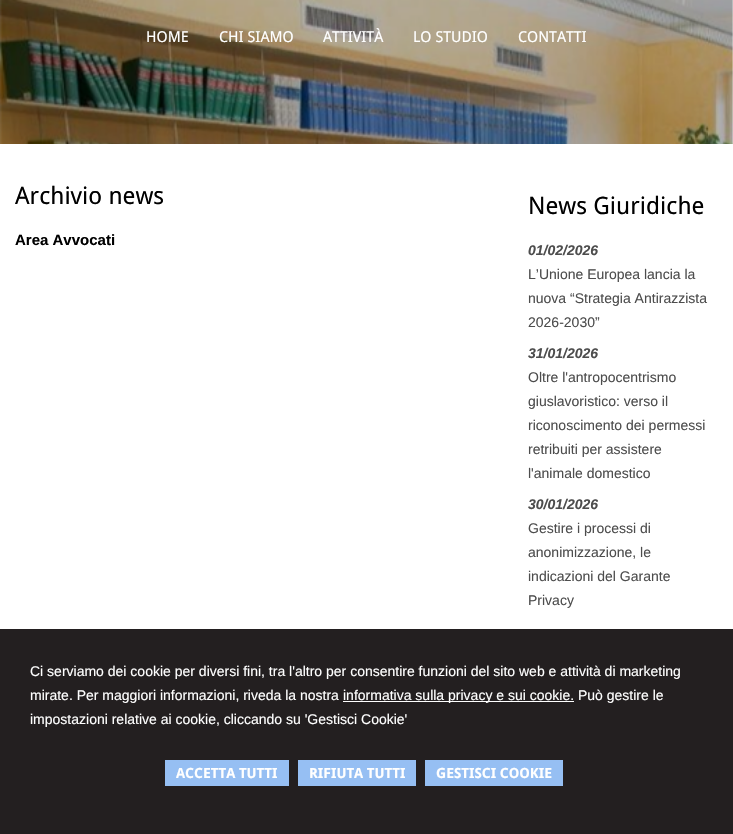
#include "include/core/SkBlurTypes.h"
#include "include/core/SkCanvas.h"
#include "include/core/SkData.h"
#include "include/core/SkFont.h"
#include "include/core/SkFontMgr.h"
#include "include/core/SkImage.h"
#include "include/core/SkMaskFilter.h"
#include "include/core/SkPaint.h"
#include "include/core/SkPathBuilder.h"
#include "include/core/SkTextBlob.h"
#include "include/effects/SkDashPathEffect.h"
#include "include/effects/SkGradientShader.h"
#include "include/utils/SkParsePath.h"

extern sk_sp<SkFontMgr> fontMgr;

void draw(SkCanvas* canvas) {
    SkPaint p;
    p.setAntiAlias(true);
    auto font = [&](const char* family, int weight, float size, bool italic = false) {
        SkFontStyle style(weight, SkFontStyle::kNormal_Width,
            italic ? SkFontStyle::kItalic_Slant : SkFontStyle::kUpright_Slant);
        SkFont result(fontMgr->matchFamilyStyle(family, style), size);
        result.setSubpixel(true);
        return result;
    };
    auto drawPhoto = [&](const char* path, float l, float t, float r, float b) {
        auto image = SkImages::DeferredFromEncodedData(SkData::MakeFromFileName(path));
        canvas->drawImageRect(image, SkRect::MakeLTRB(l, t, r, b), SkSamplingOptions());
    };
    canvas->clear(0xFFFFFFFF);
    drawPhoto("media/1.png", 0, 0, 733, 144);
    auto font1 = font("Droid Sans", 400, 15);
    p.setColor(0xFFFFFFFF);
    {
        const struct { const char* s; float x, y; } items[] = {
            {"HOME", 146, 42},
            {"CHI SIAMO", 219, 42},
            {"ATTIVITÀ", 323, 42},
            {"LO STUDIO", 413, 42},
            {"CONTATTI", 518, 42},
        };
        for (auto [s, x, y] : items) {
            canvas->drawString(s, x, y, font1, p);
        }
    }
    auto font2 = font("Droid Sans", 400, 24);
    p.setColor(0xFF000000);
    canvas->drawString("Archivio news", 15, 204, font2, p);
    auto font3 = font("Liberation Sans", 700, 15);
    canvas->drawString("Area Avvocati", 15, 245, font3, p);
    canvas->drawString("News Giuridiche", 528, 214, font2, p);
    auto font4 = font("Liberation Sans", 700, 14, true);
    p.setColor(0xFF4D4D4D);
    canvas->drawString("01/02/2026", 528, 255, font4, p);
    auto font5 = font("Liberation Sans", 400, 14);
    {
        const struct { const char* s; float x, y; } items[] = {
            {"L’Unione Europea lancia la", 528, 279},
            {"nuova “Strategia Antirazzista", 528, 303},
            {"2026-2030”", 528, 327},
        };
        for (auto [s, x, y] : items) {
            canvas->drawString(s, x, y, font5, p);
        }
    }
    canvas->drawString("31/01/2026", 528, 358, font4, p);
    {
        const struct { const char* s; float x, y; } items[] = {
            {"Oltre l'antropocentrismo", 528, 382},
            {"giuslavoristico: verso il", 528, 406},
            {"riconoscimento dei permessi", 528, 430},
            {"retribuiti per assistere", 528, 454},
            {"l'animale domestico", 528, 478},
        };
        for (auto [s, x, y] : items) {
            canvas->drawString(s, x, y, font5, p);
        }
    }
    canvas->drawString("30/01/2026", 528, 509, font4, p);
    {
        const struct { const char* s; float x, y; } items[] = {
            {"Gestire i processi di", 528, 533},
            {"anonimizzazione, le", 528, 557},
            {"indicazioni del Garante", 528, 581},
            {"Privacy", 528, 605},
        };
        for (auto [s, x, y] : items) {
            canvas->drawString(s, x, y, font5, p);
        }
    }
    p.setColor(0xFF231F20);
    canvas->drawRect(SkRect::MakeLTRB(0, 629, 733, 834), p);
    p.setColor(0xFFFFFFFF);
    canvas->drawString("Ci serviamo dei cookie per diversi fini, tra l'altro per consentire funzioni del sito web e attività di marketing", 30, 676, font5, p);
    canvas->drawString("mirate. Per maggiori informazioni, riveda la nostra", 30, 700, font5, p);
    canvas->drawRect(SkRect::MakeLTRB(343, 701, 574, 702), p);
    canvas->drawString("informativa sulla privacy e sui cookie. Può gestire le", 343, 700, font5, p);
    canvas->drawString("impostazioni relative ai cookie, cliccando su 'Gestisci Cookie'", 30, 724, font5, p);
    p.setColor(0xFF96BFF3);
    canvas->drawRect(SkRect::MakeLTRB(165, 760, 289, 786), p);
    auto font6 = font("Droid Sans", 700, 14);
    p.setColor(0xFFFFFFFF);
    canvas->drawString("ACCETTA TUTTI", 176, 778, font6, p);
    p.setColor(0xFF96BFF3);
    canvas->drawRect(SkRect::MakeLTRB(298, 760, 416, 786), p);
    p.setColor(0xFFFFFFFF);
    canvas->drawString("RIFIUTA TUTTI", 309, 778, font6, p);
    p.setColor(0xFF96BFF3);
    canvas->drawRect(SkRect::MakeLTRB(425, 760, 563, 786), p);
    p.setColor(0xFFFFFFFF);
    canvas->drawString("GESTISCI COOKIE", 436, 778, font6, p);
}
